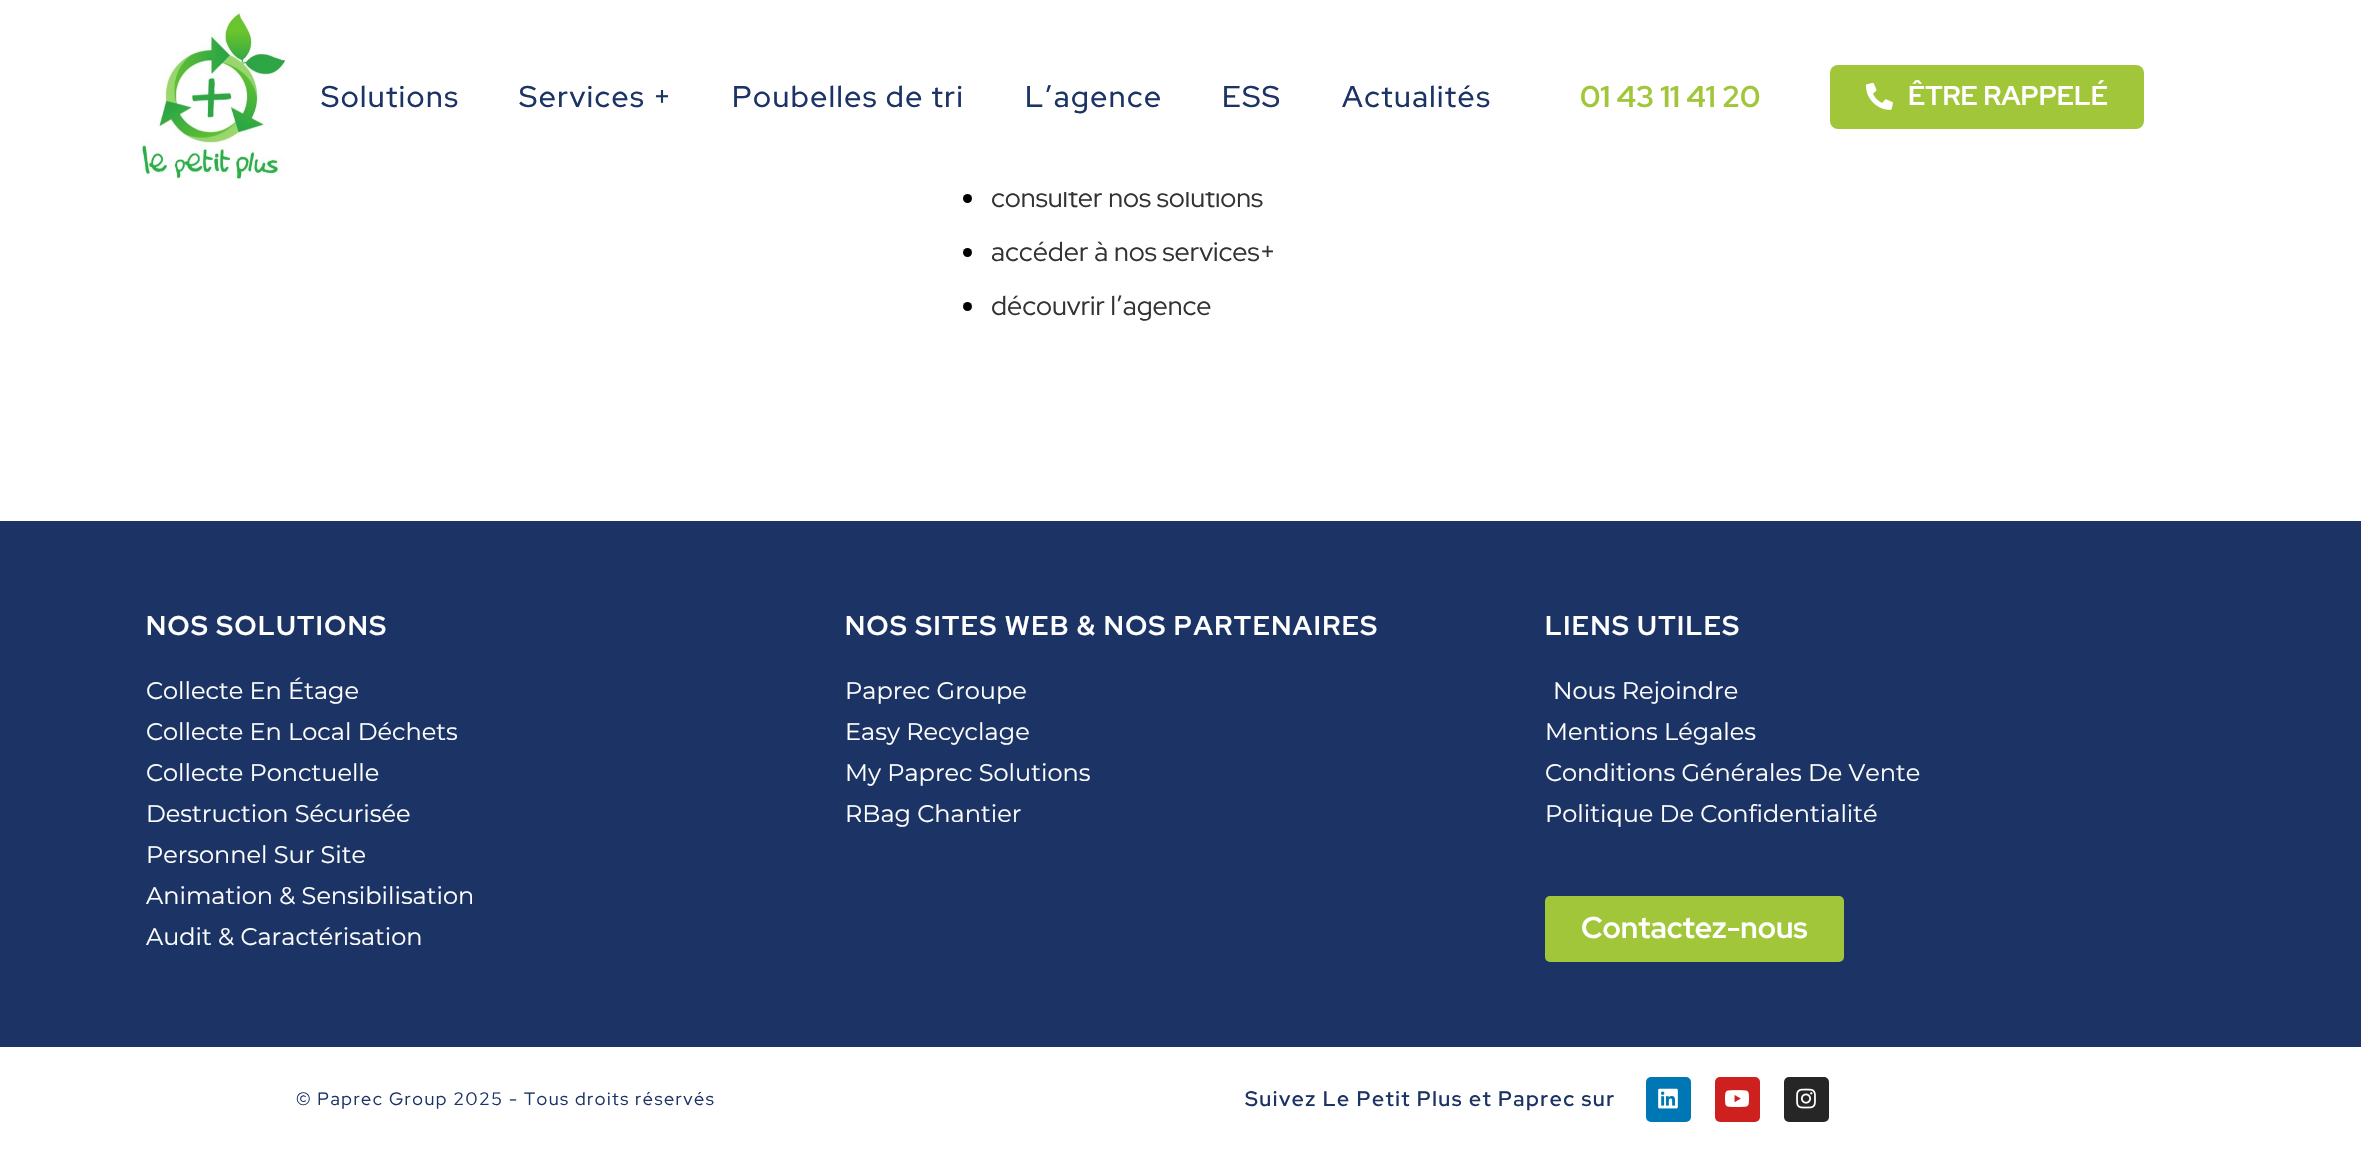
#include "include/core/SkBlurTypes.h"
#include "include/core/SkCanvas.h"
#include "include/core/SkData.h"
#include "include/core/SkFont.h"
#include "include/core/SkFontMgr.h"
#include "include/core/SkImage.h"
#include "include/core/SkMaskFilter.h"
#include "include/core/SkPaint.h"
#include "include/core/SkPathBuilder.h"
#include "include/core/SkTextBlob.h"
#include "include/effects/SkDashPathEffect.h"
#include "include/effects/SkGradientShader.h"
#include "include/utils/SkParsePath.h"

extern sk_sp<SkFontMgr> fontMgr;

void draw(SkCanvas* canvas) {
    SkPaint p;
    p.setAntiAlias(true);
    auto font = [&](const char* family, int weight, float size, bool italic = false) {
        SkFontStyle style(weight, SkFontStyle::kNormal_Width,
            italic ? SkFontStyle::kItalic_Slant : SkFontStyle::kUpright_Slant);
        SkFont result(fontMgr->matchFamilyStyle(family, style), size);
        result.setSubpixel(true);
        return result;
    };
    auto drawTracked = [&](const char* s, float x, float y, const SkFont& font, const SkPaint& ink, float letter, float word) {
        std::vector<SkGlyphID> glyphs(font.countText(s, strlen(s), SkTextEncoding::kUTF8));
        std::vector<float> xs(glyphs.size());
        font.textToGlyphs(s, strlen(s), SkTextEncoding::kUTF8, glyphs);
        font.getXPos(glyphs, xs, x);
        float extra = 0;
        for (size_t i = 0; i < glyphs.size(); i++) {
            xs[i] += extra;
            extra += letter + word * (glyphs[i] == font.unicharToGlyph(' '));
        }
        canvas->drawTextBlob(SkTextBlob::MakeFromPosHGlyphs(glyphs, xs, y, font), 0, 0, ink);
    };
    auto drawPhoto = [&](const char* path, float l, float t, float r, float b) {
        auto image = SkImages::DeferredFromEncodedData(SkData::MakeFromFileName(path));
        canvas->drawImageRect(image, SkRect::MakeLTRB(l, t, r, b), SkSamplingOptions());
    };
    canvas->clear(0xFFFFFFFF);
    auto font1 = font("Red Hat Display", 400, 27);
    p.setColor(0xFF333333);
    canvas->drawString("consulter nos solutions", 991, 207, font1, p);
    p.setColor(0xFFFFFFFF);
    canvas->drawRect(SkRect::MakeLTRB(1064, 187, 1220, 192), p);
    drawPhoto("media/1.png", 142, 13, 285, 179);
    auto font2 = font("Red Hat Display", 500, 30);
    p.setColor(0xFF1C3465);
    {
        const struct { const char* s; float x, y; } items[] = {
            {"Solutions", 321, 107},
            {"Services +", 519, 107},
            {"Poubelles de tri", 732, 107},
            {"L’agence", 1025, 107},
            {"ESS", 1222, 107},
            {"Actualités", 1342, 107},
        };
        for (auto [s, x, y] : items) {
            drawTracked(s, x, y, font2, p, 1.5f, 0);
        }
    }
    auto font3 = font("Red Hat Display", 700, 30);
    p.setColor(0xFFA1C639);
    canvas->drawString("01 43 11 41 20", 1580, 107, font3, p);
    canvas->drawRoundRect(SkRect::MakeLTRB(1830, 65, 2144, 129), 8, 8, p);
    drawPhoto("media/2.png", 1866, 82, 1893, 110);
    auto font4 = font("Red Hat Display", 700, 27);
    p.setColor(0xFFFFFFFF);
    canvas->drawString("ÊTRE RAPPELÉ", 1908, 105, font4, p);
    p.setColor(0xFF000000);
    canvas->drawCircle(967.5f, 198.5f, 4.5f, p);
    canvas->drawCircle(967.5f, 252.5f, 4.5f, p);
    p.setColor(0xFF333333);
    canvas->drawString("accéder à nos services+", 991, 261, font1, p);
    p.setColor(0xFF000000);
    canvas->drawCircle(967.5f, 306.5f, 4.5f, p);
    p.setColor(0xFF333333);
    canvas->drawString("découvrir l’agence", 991, 315, font1, p);
    p.setColor(0xFF1C3465);
    canvas->drawRect(SkRect::MakeLTRB(0, 521, 2361, 1047), p);
    p.setColor(0xFFFFFFFF);
    drawTracked("NOS SOLUTIONS", 146, 635, font4, p, 1.5f, 0);
    auto font5 = font("Montserrat", 400, 24);
    {
        const struct { const char* s; float x, y; } items[] = {
            {"Collecte En Étage", 146, 699},
            {"Collecte En Local Déchets", 146, 740},
            {"Collecte Ponctuelle", 146, 781},
            {"Destruction Sécurisée", 146, 822},
            {"Personnel Sur Site", 146, 863},
            {"Animation & Sensibilisation", 146, 904},
            {"Audit & Caractérisation", 146, 945},
        };
        for (auto [s, x, y] : items) {
            canvas->drawString(s, x, y, font5, p);
        }
    }
    drawTracked("NOS SITES WEB & NOS PARTENAIRES", 845, 635, font4, p, 1.5f, 0);
    {
        const struct { const char* s; float x, y; } items[] = {
            {"Paprec Groupe", 845, 699},
            {"Easy Recyclage", 845, 740},
            {"My Paprec Solutions", 845, 781},
            {"RBag Chantier", 845, 822},
        };
        for (auto [s, x, y] : items) {
            canvas->drawString(s, x, y, font5, p);
        }
    }
    drawTracked("LIENS UTILES", 1545, 635, font4, p, 1.5f, 0);
    {
        const struct { const char* s; float x, y; } items[] = {
            {"Nous Rejoindre", 1553, 699},
            {"Mentions Légales", 1545, 740},
            {"Conditions Générales De Vente", 1545, 781},
            {"Politique De Confidentialité", 1545, 822},
        };
        for (auto [s, x, y] : items) {
            canvas->drawString(s, x, y, font5, p);
        }
    }
    p.setColor(0xFFA1C639);
    canvas->drawRoundRect(SkRect::MakeLTRB(1545, 896, 1844, 962), 5, 5, p);
    p.setColor(0xFFFFFFFF);
    canvas->drawString("Contactez-nous", 1581, 938, font3, p);
    auto font6 = font("Red Hat Display", 400, 18);
    p.setColor(0xFF1C3465);
    drawTracked("© Paprec Group 2025 - Tous droits réservés", 296, 1105, font6, p, 1.5f, 0);
    auto font7 = font("Red Hat Display", 600, 21);
    drawTracked("Suivez Le Petit Plus et Paprec sur", 1245, 1106, font7, p, 1.5f, 0);
    p.setColor(0xFF0077B5);
    canvas->drawRoundRect(SkRect::MakeLTRB(1646, 1077, 1691, 1122), 5, 5, p);
    drawPhoto("media/3.png", 1658, 1088, 1678, 1109);
    p.setColor(0xFFCD201F);
    canvas->drawRoundRect(SkRect::MakeLTRB(1715, 1077, 1760, 1122), 5, 5, p);
    drawPhoto("media/4.png", 1725, 1090, 1749, 1107);
    p.setColor(0xFF262626);
    canvas->drawRoundRect(SkRect::MakeLTRB(1784, 1077, 1829, 1122), 5, 5, p);
    drawPhoto("media/5.png", 1796, 1088, 1816, 1109);
}
